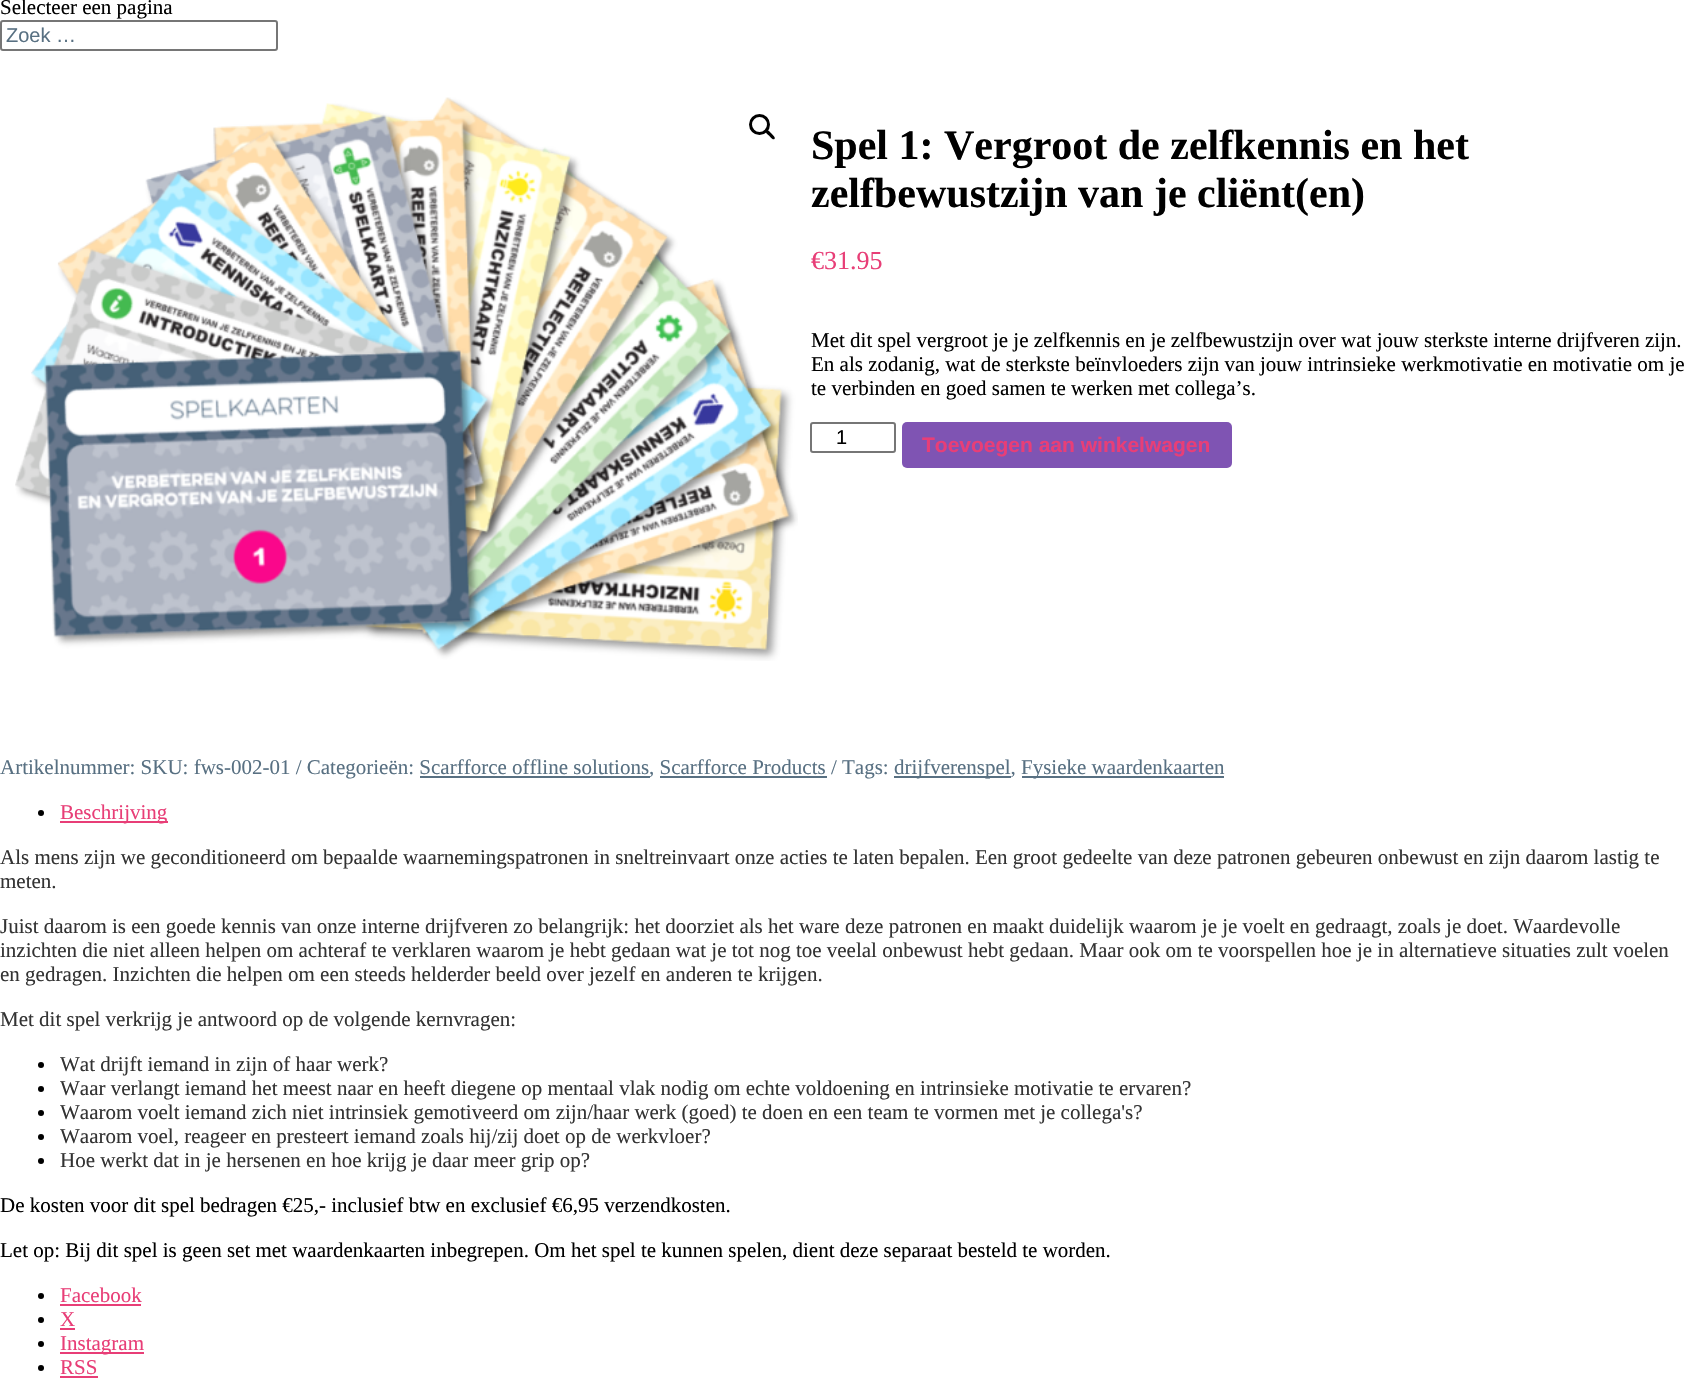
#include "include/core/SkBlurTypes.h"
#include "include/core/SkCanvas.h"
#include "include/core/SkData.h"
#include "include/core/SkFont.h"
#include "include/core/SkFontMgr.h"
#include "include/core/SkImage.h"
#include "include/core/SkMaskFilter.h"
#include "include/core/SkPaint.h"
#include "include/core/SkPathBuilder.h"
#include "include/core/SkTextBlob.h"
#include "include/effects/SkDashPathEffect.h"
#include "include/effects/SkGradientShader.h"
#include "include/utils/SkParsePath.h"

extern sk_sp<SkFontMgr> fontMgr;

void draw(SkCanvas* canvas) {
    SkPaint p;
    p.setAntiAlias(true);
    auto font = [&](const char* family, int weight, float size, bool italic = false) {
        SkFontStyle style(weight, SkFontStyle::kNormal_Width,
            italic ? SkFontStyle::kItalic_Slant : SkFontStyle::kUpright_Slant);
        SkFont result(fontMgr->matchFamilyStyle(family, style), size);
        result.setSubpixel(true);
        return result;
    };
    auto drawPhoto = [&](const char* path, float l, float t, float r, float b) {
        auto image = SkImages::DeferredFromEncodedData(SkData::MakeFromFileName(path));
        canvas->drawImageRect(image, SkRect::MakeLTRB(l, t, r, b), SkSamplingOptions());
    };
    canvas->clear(0xFFFFFFFF);
    auto font1 = font("Liberation Serif", 400, 21);
    p.setColor(0xFF000000);
    canvas->drawString("Selecteer een pagina", 0, 14, font1, p);
    p.setStyle(SkPaint::kStroke_Style);
    p.setStrokeWidth(2);
    p.setColor(0xFF767676);
    canvas->drawRoundRect(SkRect::MakeLTRB(1, 21, 277, 50), 2, 2, p);
    auto font2 = font("Liberation Sans", 400, 20);
    p.setStyle(SkPaint::kFill_Style);
    p.setColor(0xFF587082);
    canvas->drawString("Zoek …", 6, 42, font2, p);
    drawPhoto("media/1.png", 15, 97, 798, 661);
    p.setStyle(SkPaint::kStroke_Style);
    p.setStrokeWidth(3);
    p.setColor(0xFF000000);
    canvas->drawCircle(759.5f, 124.5f, 9, p);
    p.setStyle(SkPaint::kFill_Style);
    canvas->drawPath(SkPathBuilder().moveTo(766, 130.5f).cubicTo(767.5f, 128.5f, 770.5f, 132.5f, 771.5f, 133.5f).cubicTo(772, 134.5f, 776, 137, 774.5f, 139).cubicTo(772.5f, 140.5f, 770, 136.5f, 769, 135.5f).cubicTo(768, 135, 764.5f, 132, 766, 130.5f).close().detach(), p);
    auto font3 = font("Liberation Serif", 700, 42);
    canvas->drawString("Spel 1: Vergroot de zelfkennis en het", 811, 159, font3, p);
    canvas->drawString("zelfbewustzijn van je cliënt(en)", 811, 207, font3, p);
    auto font4 = font("Liberation Serif", 400, 26);
    p.setColor(0xFFE83E77);
    canvas->drawString("€31.95", 811, 269, font4, p);
    p.setColor(0xFF000000);
    {
        const struct { const char* s; float x, y; } items[] = {
            {"Met dit spel vergroot je je zelfkennis en je zelfbewustzijn over wat jouw sterkste interne drijfveren zijn.", 811, 347},
            {"En als zodanig, wat de sterkste beïnvloeders zijn van jouw intrinsieke werkmotivatie en motivatie om je", 811, 371},
            {"te verbinden en goed samen te werken met collega’s.", 811, 395},
        };
        for (auto [s, x, y] : items) {
            canvas->drawString(s, x, y, font1, p);
        }
    }
    p.setStyle(SkPaint::kStroke_Style);
    p.setStrokeWidth(2);
    p.setColor(0xFF767676);
    canvas->drawRoundRect(SkRect::MakeLTRB(811, 423, 895, 452), 2, 2, p);
    p.setStyle(SkPaint::kFill_Style);
    p.setColor(0xFF000000);
    canvas->drawString("1", 836, 444, font2, p);
    p.setColor(0xFF7F54B3);
    canvas->drawRoundRect(SkRect::MakeLTRB(902, 422, 1232, 468), 5, 5, p);
    auto font5 = font("Liberation Sans", 700, 21);
    p.setColor(0xFFE83E77);
    canvas->drawString("Toevoegen aan winkelwagen", 922, 452, font5, p);
    p.setColor(0xFF587082);
    canvas->drawString("Artikelnummer: SKU: fws-002-01 / Categorieën: Scarfforce offline solutions", 0, 774, font1, p);
    canvas->drawRect(SkRect::MakeLTRB(420, 776, 650, 778), p);
    canvas->drawString(", Scarfforce Products / Tags:", 649, 774, font1, p);
    canvas->drawRect(SkRect::MakeLTRB(660, 776, 827, 778), p);
    canvas->drawRect(SkRect::MakeLTRB(894, 776, 1011, 778), p);
    canvas->drawString("drijfverenspel,", 894, 774, font1, p);
    canvas->drawRect(SkRect::MakeLTRB(1022, 776, 1224, 778), p);
    canvas->drawString("Fysieke waardenkaarten", 1021, 774, font1, p);
    p.setColor(0xFF000000);
    canvas->drawCircle(41, 813, 3, p);
    p.setColor(0xFFE83E77);
    canvas->drawRect(SkRect::MakeLTRB(60, 821, 168, 823), p);
    canvas->drawString("Beschrijving", 60, 819, font1, p);
    p.setColor(0xFF333333);
    {
        const struct { const char* s; float x, y; } items[] = {
            {"Als mens zijn we geconditioneerd om bepaalde waarnemingspatronen in sneltreinvaart onze acties te laten bepalen. Een groot gedeelte van deze patronen gebeuren onbewust en zijn daarom lastig te", 0, 864},
            {"meten.", 0, 888},
            {"Juist daarom is een goede kennis van onze interne drijfveren zo belangrijk: het doorziet als het ware deze patronen en maakt duidelijk waarom je je voelt en gedraagt, zoals je doet. Waardevolle", 0, 933},
            {"inzichten die niet alleen helpen om achteraf te verklaren waarom je hebt gedaan wat je tot nog toe veelal onbewust hebt gedaan. Maar ook om te voorspellen hoe je in alternatieve situaties zult voelen", 0, 957},
            {"en gedragen. Inzichten die helpen om een steeds helderder beeld over jezelf en anderen te krijgen.", 0, 981},
            {"Met dit spel verkrijg je antwoord op de volgende kernvragen:", 0, 1026},
        };
        for (auto [s, x, y] : items) {
            canvas->drawString(s, x, y, font1, p);
        }
    }
    p.setColor(0xFF000000);
    canvas->drawCircle(41, 1065, 3, p);
    p.setColor(0xFF333333);
    canvas->drawString("Wat drijft iemand in zijn of haar werk?", 60, 1071, font1, p);
    p.setColor(0xFF000000);
    canvas->drawCircle(41, 1089, 3, p);
    p.setColor(0xFF333333);
    canvas->drawString("Waar verlangt iemand het meest naar en heeft diegene op mentaal vlak nodig om echte voldoening en intrinsieke motivatie te ervaren?", 60, 1095, font1, p);
    p.setColor(0xFF000000);
    canvas->drawCircle(41, 1113, 3, p);
    p.setColor(0xFF333333);
    canvas->drawString("Waarom voelt iemand zich niet intrinsiek gemotiveerd om zijn/haar werk (goed) te doen en een team te vormen met je collega's?", 60, 1119, font1, p);
    p.setColor(0xFF000000);
    canvas->drawCircle(41, 1137, 3, p);
    p.setColor(0xFF333333);
    canvas->drawString("Waarom voel, reageer en presteert iemand zoals hij/zij doet op de werkvloer?", 60, 1143, font1, p);
    p.setColor(0xFF000000);
    canvas->drawCircle(41, 1161, 3, p);
    p.setColor(0xFF333333);
    canvas->drawString("Hoe werkt dat in je hersenen en hoe krijg je daar meer grip op?", 60, 1167, font1, p);
    p.setColor(0xFF000000);
    canvas->drawString("De kosten voor dit spel bedragen €25,- inclusief btw en exclusief €6,95 verzendkosten.", 0, 1212, font1, p);
    canvas->drawString("Let op: Bij dit spel is geen set met waardenkaarten inbegrepen. Om het spel te kunnen spelen, dient deze separaat besteld te worden.", 0, 1257, font1, p);
    canvas->drawCircle(41, 1296, 3, p);
    p.setColor(0xFFE83E77);
    canvas->drawString("Facebook", 60, 1302, font1, p);
    canvas->drawRect(SkRect::MakeLTRB(60, 1304, 141, 1306), p);
    p.setColor(0xFF000000);
    canvas->drawCircle(41, 1320, 3, p);
    p.setColor(0xFFE83E77);
    canvas->drawString("X", 60, 1326, font1, p);
    canvas->drawRect(SkRect::MakeLTRB(60, 1328, 75, 1330), p);
    p.setColor(0xFF000000);
    canvas->drawCircle(41, 1344, 3, p);
    p.setColor(0xFFE83E77);
    canvas->drawRect(SkRect::MakeLTRB(60, 1352, 144, 1354), p);
    canvas->drawString("Instagram", 60, 1350, font1, p);
    p.setColor(0xFF000000);
    canvas->drawCircle(41, 1368, 3, p);
    p.setColor(0xFFE83E77);
    canvas->drawString("RSS", 60, 1374, font1, p);
    canvas->drawRect(SkRect::MakeLTRB(60, 1376, 98, 1378), p);
}
